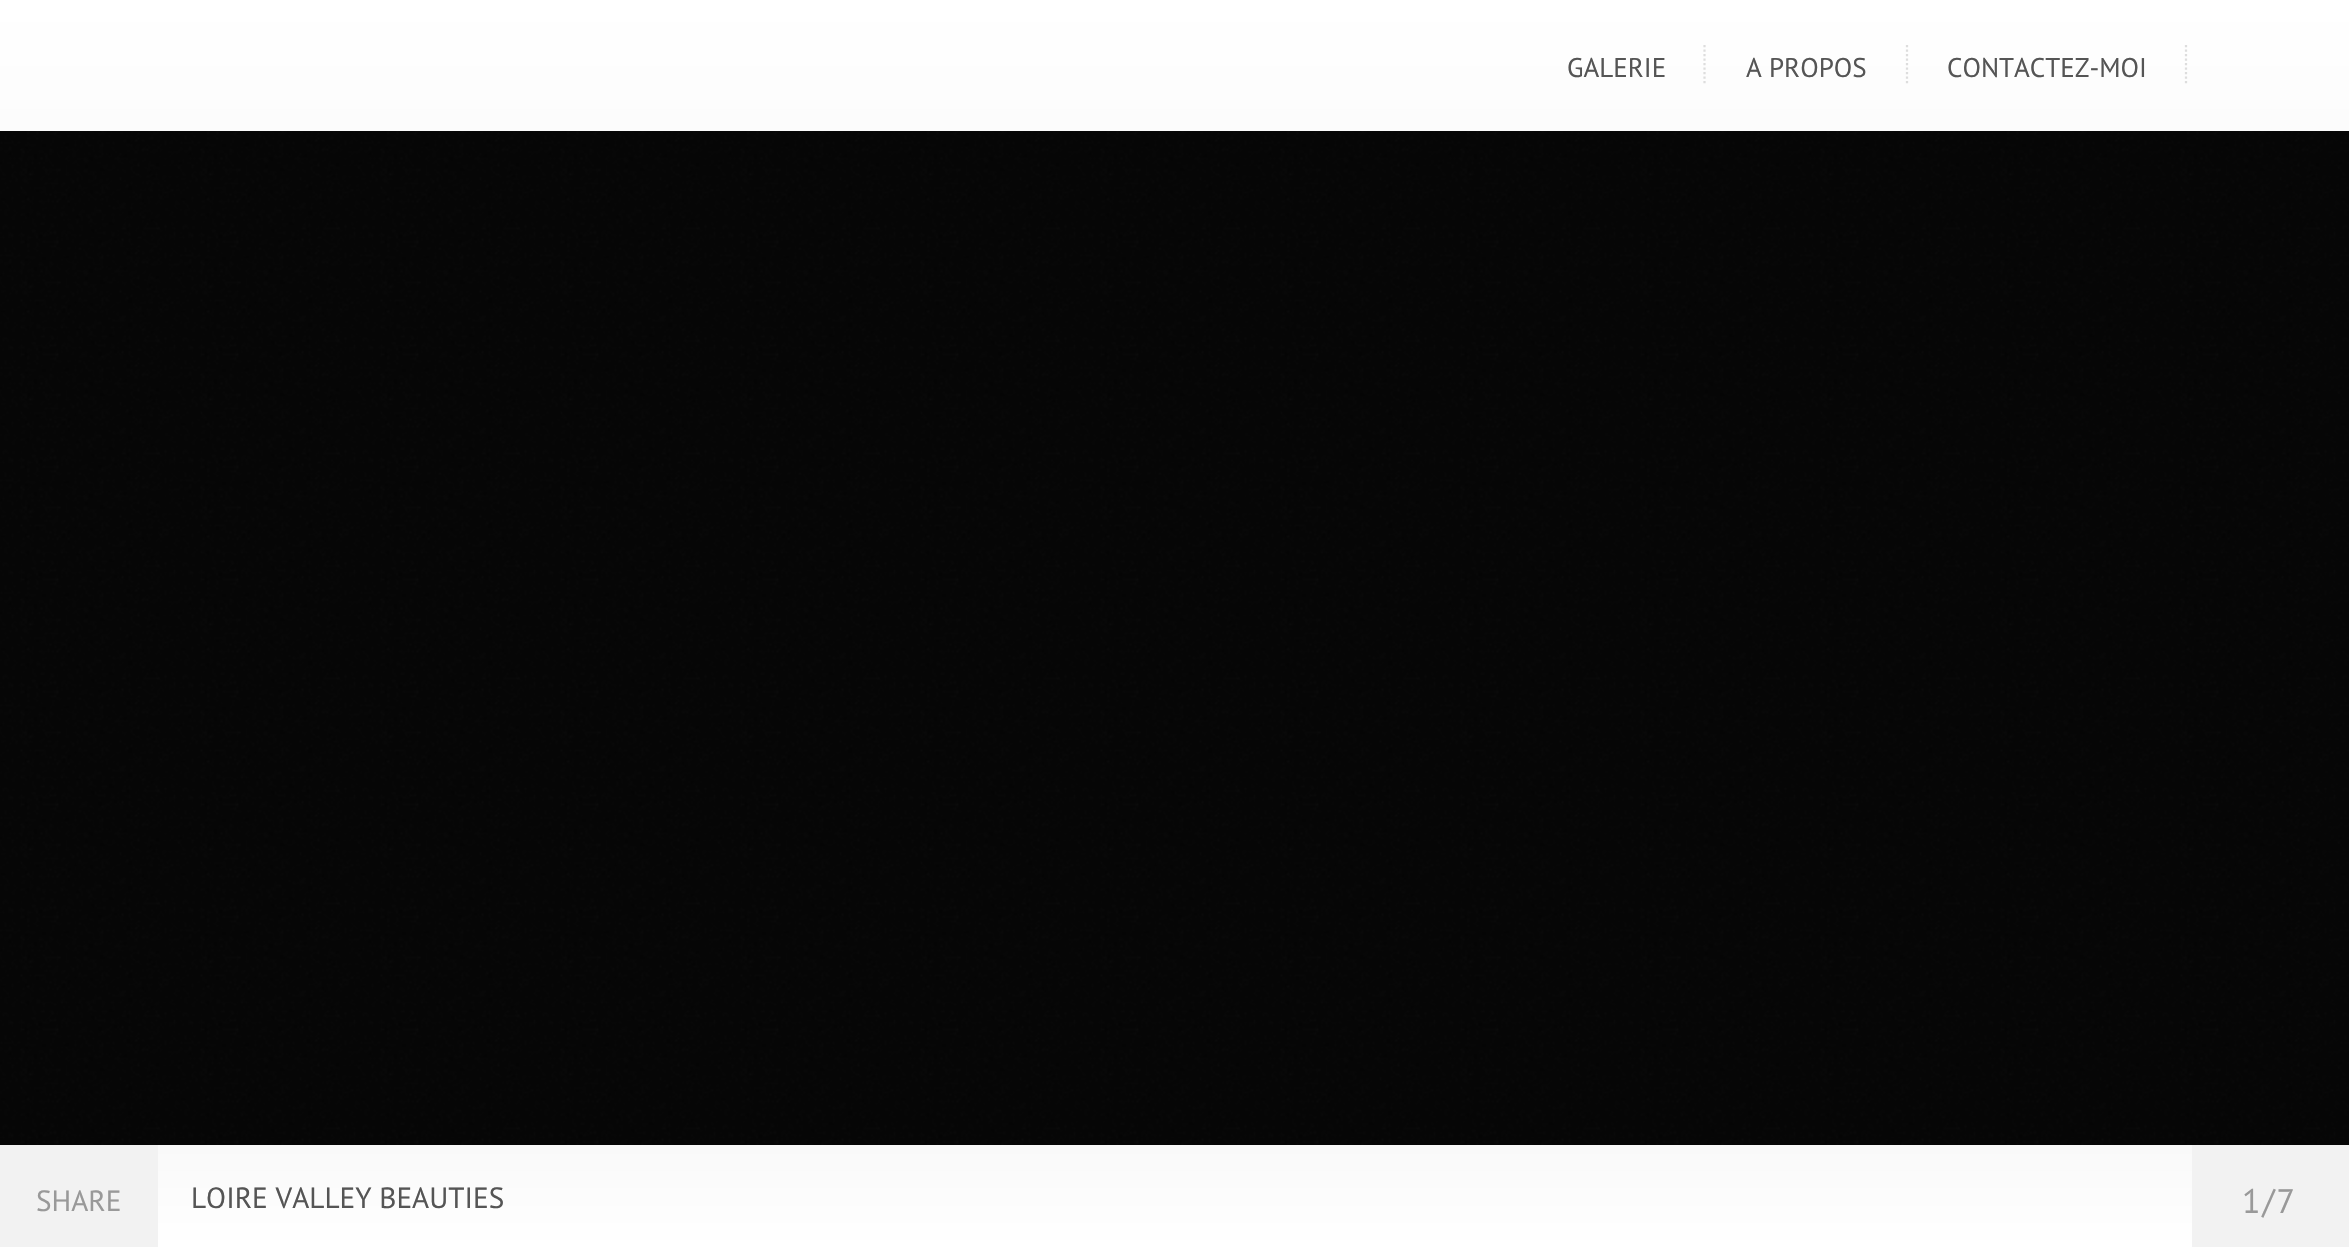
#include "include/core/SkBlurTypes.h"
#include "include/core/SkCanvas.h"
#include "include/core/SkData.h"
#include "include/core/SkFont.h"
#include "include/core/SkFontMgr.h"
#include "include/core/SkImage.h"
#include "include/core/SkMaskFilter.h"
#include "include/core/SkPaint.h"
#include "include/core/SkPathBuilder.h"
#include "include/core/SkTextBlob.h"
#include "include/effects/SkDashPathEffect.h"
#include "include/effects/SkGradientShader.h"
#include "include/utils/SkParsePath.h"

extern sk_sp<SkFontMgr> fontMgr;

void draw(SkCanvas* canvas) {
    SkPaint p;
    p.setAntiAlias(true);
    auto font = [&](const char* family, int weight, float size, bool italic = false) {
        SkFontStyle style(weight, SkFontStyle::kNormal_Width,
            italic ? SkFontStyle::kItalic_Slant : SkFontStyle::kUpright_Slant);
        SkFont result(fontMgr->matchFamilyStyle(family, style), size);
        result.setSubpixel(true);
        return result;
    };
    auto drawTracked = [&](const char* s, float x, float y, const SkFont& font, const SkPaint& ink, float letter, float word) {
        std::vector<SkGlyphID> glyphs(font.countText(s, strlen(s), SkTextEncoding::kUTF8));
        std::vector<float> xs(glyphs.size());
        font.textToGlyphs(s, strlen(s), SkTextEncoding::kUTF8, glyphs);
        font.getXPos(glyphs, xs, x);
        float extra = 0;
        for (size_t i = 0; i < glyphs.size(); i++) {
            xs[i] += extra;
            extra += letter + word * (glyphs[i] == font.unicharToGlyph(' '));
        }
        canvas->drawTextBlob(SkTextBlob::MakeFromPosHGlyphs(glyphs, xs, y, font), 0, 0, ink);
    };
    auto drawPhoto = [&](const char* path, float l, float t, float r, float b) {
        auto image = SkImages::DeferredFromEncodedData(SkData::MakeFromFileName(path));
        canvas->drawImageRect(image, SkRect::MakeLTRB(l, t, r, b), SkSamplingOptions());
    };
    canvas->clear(0xFF000000);
    drawPhoto("media/1.png", 0, 131, 2349, 1145);
    {
        const SkColor colors[] = {0xFFFFFFFF, 0xFFFCFCFC};
        const float stops[] = {0, 1};
        const SkPoint ends[] = {{1175, 0}, {1175, 131}};
        p.setShader(SkGradientShader::MakeLinear(ends, colors, stops, 2, SkTileMode::kClamp));
        p.setAlpha(255);
    }
    canvas->drawRect(SkRect::MakeLTRB(0, 0, 2349, 131), p);
    auto font1 = font("PT Sans", 400, 27);
    p.setShader(nullptr);
    p.setColor(0xFF555555);
    canvas->drawString("GALERIE", 1567, 77, font1, p);
    p.setStyle(SkPaint::kStroke_Style);
    p.setStrokeWidth(2.2f);
    p.setColor(0xFFDDDDDD);
    p.setPathEffect(SkDashPathEffect::Make({{2.25f, 2.25f}}, 0));
    canvas->drawPath(SkPathBuilder().moveTo(1704.5f, 45).lineTo(1704.5f, 85.5f).detach(), p);
    p.setPathEffect(nullptr);
    p.setStyle(SkPaint::kFill_Style);
    p.setColor(0xFF555555);
    canvas->drawString("A PROPOS", 1746, 77, font1, p);
    p.setStyle(SkPaint::kStroke_Style);
    p.setColor(0xFFDDDDDD);
    p.setPathEffect(SkDashPathEffect::Make({{2.25f, 2.25f}}, 0));
    canvas->drawPath(SkPathBuilder().moveTo(1907, 45).lineTo(1907, 85.5f).detach(), p);
    p.setPathEffect(nullptr);
    p.setStyle(SkPaint::kFill_Style);
    p.setColor(0xFF555555);
    canvas->drawString("CONTACTEZ-MOI", 1947, 77, font1, p);
    p.setStyle(SkPaint::kStroke_Style);
    p.setColor(0xFFDDDDDD);
    p.setPathEffect(SkDashPathEffect::Make({{2.25f, 2.25f}}, 0));
    canvas->drawPath(SkPathBuilder().moveTo(2186, 45).lineTo(2186, 85.5f).detach(), p);
    p.setPathEffect(nullptr);
    p.setStyle(SkPaint::kFill_Style);
    {
        const SkColor colors[] = {0xFFF9F9F9, 0xFFFFFFFF};
        const float stops[] = {0, 1};
        const SkPoint ends[] = {{1175, 1145}, {1175, 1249}};
        p.setShader(SkGradientShader::MakeLinear(ends, colors, stops, 2, SkTileMode::kClamp));
        p.setAlpha(255);
    }
    canvas->drawRect(SkRect::MakeLTRB(158, 1145, 2192, 1247), p);
    p.setShader(nullptr);
    p.setColor(0xFFF2F2F2);
    canvas->drawRect(SkRect::MakeLTRB(0, 1145, 158, 1247), p);
    auto font2 = font("PT Sans", 400, 29.25f);
    p.setColor(0xFF999999);
    canvas->drawString("SHARE", 36, 1211, font2, p);
    p.setColor(0xFF555555);
    canvas->drawString("LOIRE VALLEY BEAUTIES", 191, 1208, font2, p);
    p.setColor(0xFFF2F2F2);
    canvas->drawRect(SkRect::MakeLTRB(2192, 1145, 2349, 1247), p);
    auto font3 = font("PT Sans", 400, 34);
    p.setColor(0xFF999999);
    drawTracked("1/7", 2242, 1213, font3, p, 2, 0);
}
